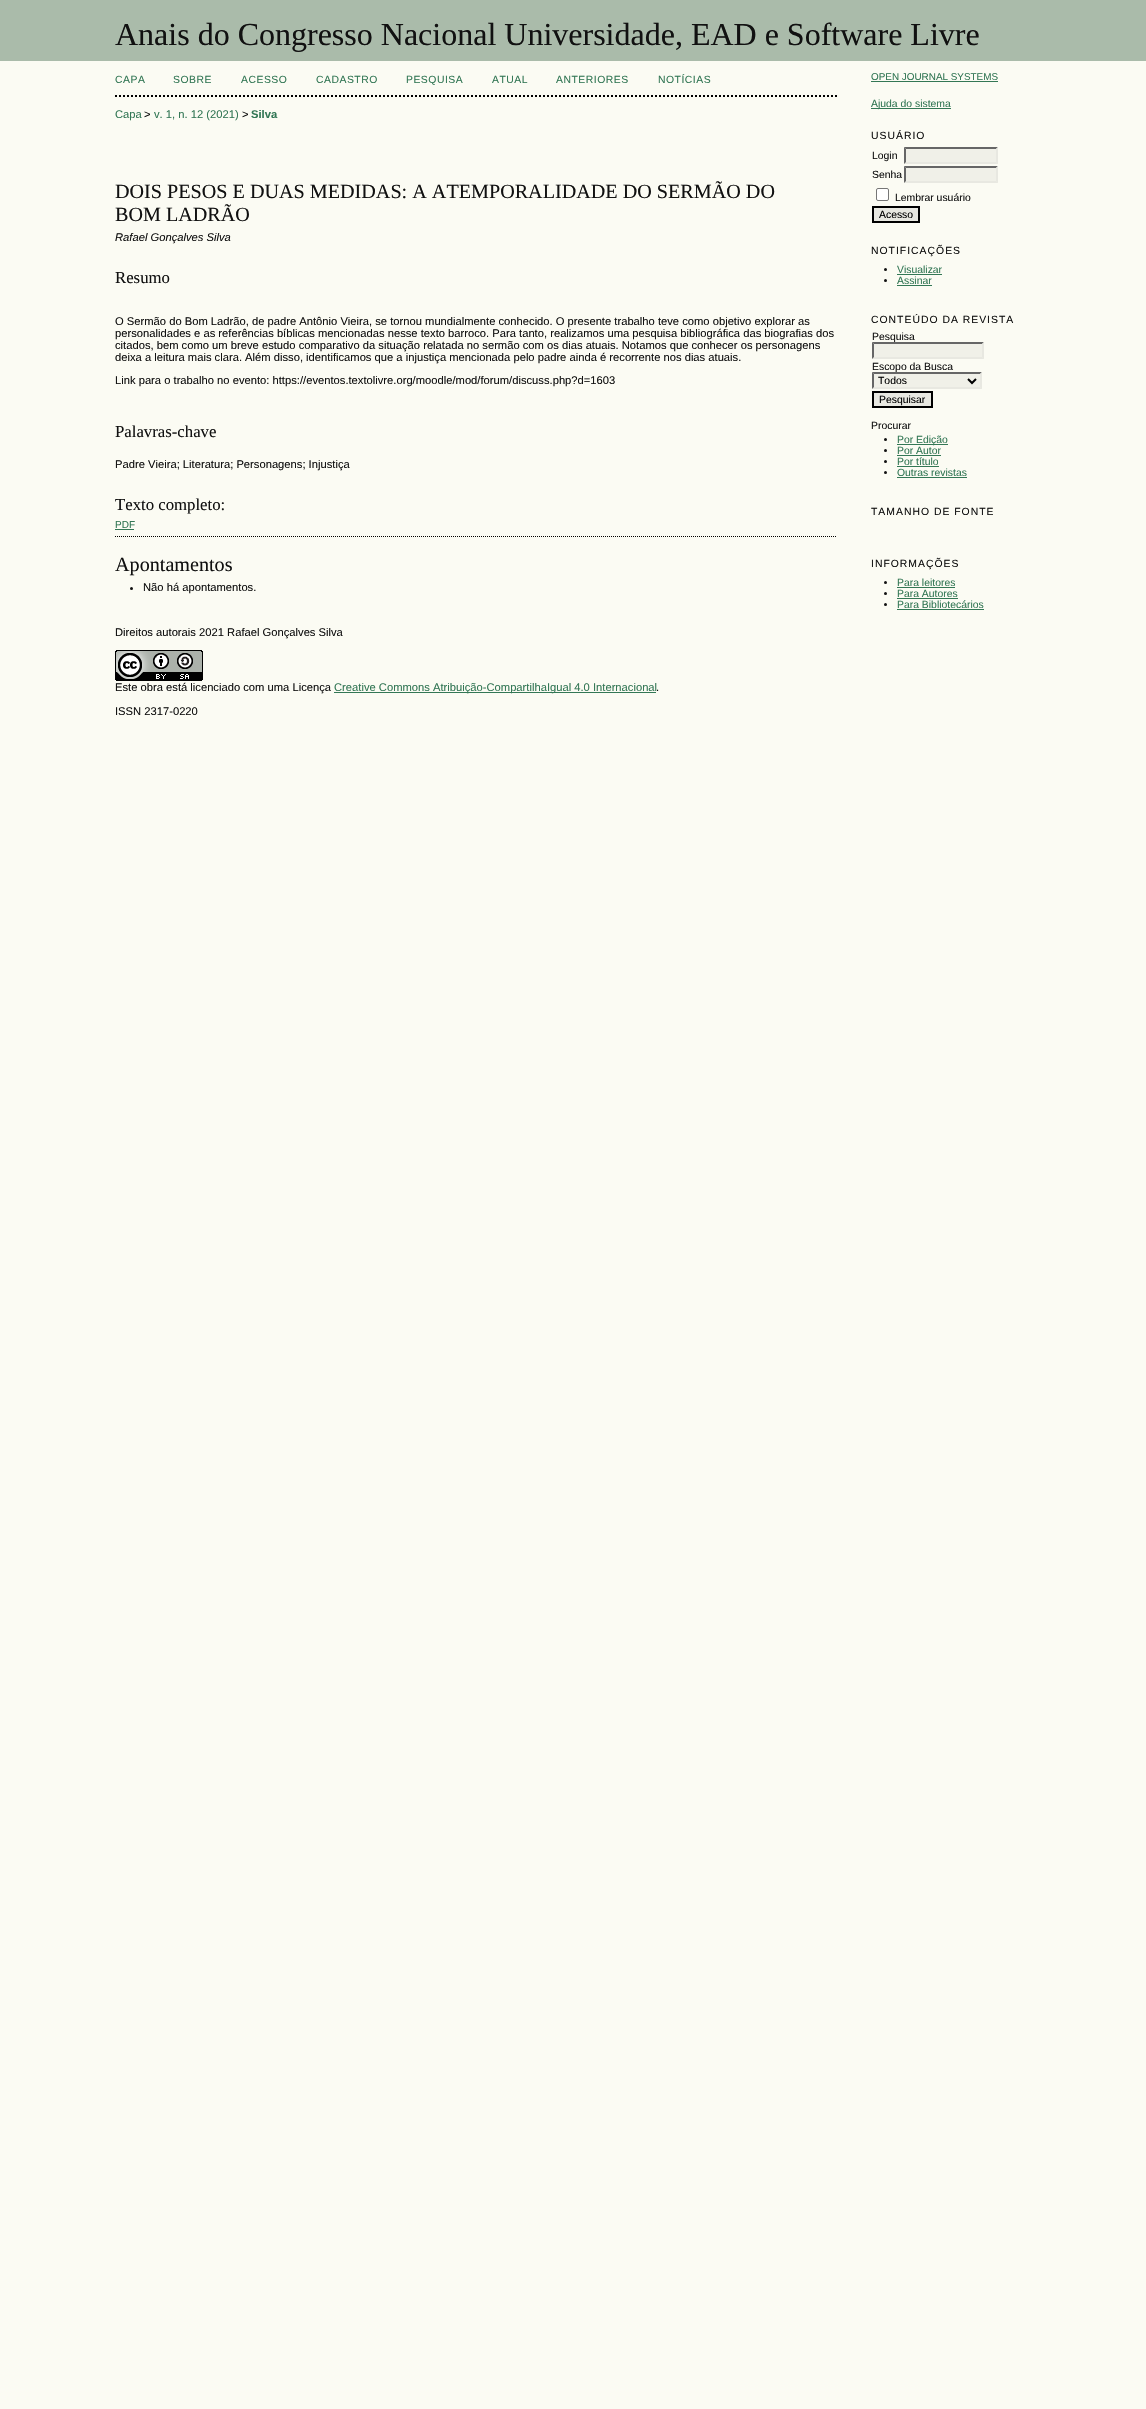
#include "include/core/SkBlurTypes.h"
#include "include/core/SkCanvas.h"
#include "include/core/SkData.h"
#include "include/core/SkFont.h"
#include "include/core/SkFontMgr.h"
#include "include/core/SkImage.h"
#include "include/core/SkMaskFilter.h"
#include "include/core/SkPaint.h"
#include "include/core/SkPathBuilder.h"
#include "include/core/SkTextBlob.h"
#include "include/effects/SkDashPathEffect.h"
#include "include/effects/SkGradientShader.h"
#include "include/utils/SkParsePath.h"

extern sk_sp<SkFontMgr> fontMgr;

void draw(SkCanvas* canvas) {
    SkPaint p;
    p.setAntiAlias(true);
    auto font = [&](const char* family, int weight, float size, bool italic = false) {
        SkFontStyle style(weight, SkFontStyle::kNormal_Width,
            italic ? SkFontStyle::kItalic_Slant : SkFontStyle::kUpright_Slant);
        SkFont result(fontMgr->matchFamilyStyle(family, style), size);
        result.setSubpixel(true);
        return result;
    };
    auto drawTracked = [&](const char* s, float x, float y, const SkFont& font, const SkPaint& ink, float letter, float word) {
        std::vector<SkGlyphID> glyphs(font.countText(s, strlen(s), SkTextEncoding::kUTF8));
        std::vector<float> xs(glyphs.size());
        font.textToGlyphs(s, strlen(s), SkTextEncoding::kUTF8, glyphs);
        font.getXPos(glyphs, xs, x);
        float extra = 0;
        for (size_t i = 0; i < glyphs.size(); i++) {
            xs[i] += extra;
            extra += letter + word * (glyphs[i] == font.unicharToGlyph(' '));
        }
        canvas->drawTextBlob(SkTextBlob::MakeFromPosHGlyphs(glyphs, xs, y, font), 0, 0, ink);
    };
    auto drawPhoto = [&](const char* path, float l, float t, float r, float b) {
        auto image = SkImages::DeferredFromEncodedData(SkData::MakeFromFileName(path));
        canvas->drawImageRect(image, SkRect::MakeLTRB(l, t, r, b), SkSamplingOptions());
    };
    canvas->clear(0xFFFBFBF3);
    p.setColor(0xFFAABBAA);
    canvas->drawRect(SkRect::MakeLTRB(0, 0, 1146, 61), p);
    auto font1 = font("Liberation Serif", 400, 32);
    p.setColor(0xFF111111);
    canvas->drawString("Anais do Congresso Nacional Universidade, EAD e Software Livre", 115, 45, font1, p);
    p.setStyle(SkPaint::kStroke_Style);
    p.setStrokeWidth(2);
    p.setColor(0xFF000000);
    p.setPathEffect(SkDashPathEffect::Make({{2, 2}}, 0));
    canvas->drawPath(SkPathBuilder().moveTo(115, 96).lineTo(837, 96).detach(), p);
    p.setPathEffect(nullptr);
    auto font2 = font("Liberation Sans", 400, 10.4f);
    p.setStyle(SkPaint::kFill_Style);
    p.setColor(0xFF337755);
    {
        const struct { const char* s; float x, y; } items[] = {
            {"CAPA", 115, 83},
            {"SOBRE", 173, 83},
            {"ACESSO", 241, 83},
            {"CADASTRO", 316, 83},
            {"PESQUISA", 406, 83},
            {"ATUAL", 492, 83},
            {"ANTERIORES", 556, 83},
            {"NOTÍCIAS", 658, 83},
        };
        for (auto [s, x, y] : items) {
            drawTracked(s, x, y, font2, p, 0.5f, 0);
        }
    }
    auto font3 = font("Liberation Sans", 400, 11.2f);
    canvas->drawString("Capa", 115, 118, font3, p);
    p.setColor(0xFF111111);
    canvas->drawString(">", 144, 118, font3, p);
    p.setColor(0xFF337755);
    canvas->drawString("v. 1, n. 12 (2021)", 154, 118, font3, p);
    p.setColor(0xFF111111);
    canvas->drawString(">", 242, 118, font3, p);
    auto font4 = font("Liberation Sans", 700, 11.2f);
    p.setColor(0xFF337755);
    canvas->drawString("Silva", 251, 118, font4, p);
    auto font5 = font("Liberation Serif", 400, 20.15f);
    p.setColor(0xFF111111);
    canvas->drawString("DOIS PESOS E DUAS MEDIDAS: A ATEMPORALIDADE DO SERMÃO DO", 115, 198, font5, p);
    canvas->drawString("BOM LADRÃO", 115, 221, font5, p);
    auto font6 = font("Liberation Sans", 400, 11.2f, true);
    canvas->drawString("Rafael Gonçalves Silva", 115, 241, font6, p);
    auto font7 = font("Liberation Serif", 400, 16.75f);
    canvas->drawString("Resumo", 115, 283, font7, p);
    {
        const struct { const char* s; float x, y; } items[] = {
            {"O Sermão do Bom Ladrão, de padre Antônio Vieira, se tornou mundialmente conhecido. O presente trabalho teve como objetivo explorar as", 115, 325},
            {"personalidades e as referências bíblicas mencionadas nesse texto barroco. Para tanto, realizamos uma pesquisa bibliográfica das biografias dos", 115, 337},
            {"citados, bem como um breve estudo comparativo da situação relatada no sermão com os dias atuais. Notamos que conhecer os personagens", 115, 349},
            {"deixa a leitura mais clara. Além disso, identificamos que a injustiça mencionada pelo padre ainda é recorrente nos dias atuais.", 115, 361},
            {"Link para o trabalho no evento: https://eventos.textolivre.org/moodle/mod/forum/discuss.php?d=1603", 115, 384},
        };
        for (auto [s, x, y] : items) {
            canvas->drawString(s, x, y, font3, p);
        }
    }
    canvas->drawString("Palavras-chave", 115, 437, font7, p);
    canvas->drawString("Padre Vieira; Literatura; Personagens; Injustiça", 115, 468, font3, p);
    canvas->save();
    canvas->clipRect(SkRect::MakeLTRB(115, 61, 837, 749));
    canvas->drawString("Texto completo:", 115, 510, font7, p);
    canvas->restore();
    auto font8 = font("Liberation Sans", 400, 10);
    p.setColor(0xFF337755);
    canvas->drawString("PDF", 115, 528, font8, p);
    canvas->drawRect(SkRect::MakeLTRB(115, 529, 134, 530), p);
    p.setStyle(SkPaint::kStroke_Style);
    p.setStrokeWidth(1);
    p.setColor(0xFF000000);
    p.setPathEffect(SkDashPathEffect::Make({{1, 1}}, 0));
    canvas->drawPath(SkPathBuilder().moveTo(115, 536.5f).lineTo(837, 536.5f).detach(), p);
    p.setPathEffect(nullptr);
    p.setStyle(SkPaint::kFill_Style);
    p.setColor(0xFF111111);
    canvas->drawString("Apontamentos", 115, 571, font5, p);
    canvas->drawCircle(131.5f, 588.5f, 1.5f, p);
    canvas->drawString("Não há apontamentos.", 143, 591, font3, p);
    canvas->drawString("Direitos autorais 2021 Rafael Gonçalves Silva", 115, 636, font3, p);
    drawPhoto("media/1.png", 115, 650, 203, 681);
    canvas->drawString("Este obra está licenciado com uma Licença", 115, 691, font3, p);
    p.setColor(0xFF337755);
    canvas->drawRect(SkRect::MakeLTRB(334, 692, 656, 693), p);
    canvas->drawString("Creative Commons Atribuição-CompartilhaIgual 4.0 Internacional", 334, 691, font3, p);
    p.setColor(0xFF111111);
    canvas->drawString(".", 656, 691, font3, p);
    canvas->drawString("ISSN 2317-0220", 115, 715, font3, p);
    auto font9 = font("Liberation Sans", 400, 9.9f);
    p.setColor(0xFF337755);
    canvas->drawString("OPEN JOURNAL SYSTEMS", 871, 80, font9, p);
    canvas->drawRect(SkRect::MakeLTRB(871, 81, 998, 82), p);
    canvas->drawRect(SkRect::MakeLTRB(871, 108, 951, 109), p);
    canvas->drawString("Ajuda do sistema", 871, 107, font2, p);
    p.setColor(0xFF111111);
    drawTracked("USUÁRIO", 871, 139, font2, p, 1, 0);
    canvas->drawString("Login", 872, 159, font2, p);
    p.setColor(0xFFF0F0E8);
    canvas->drawRect(SkRect::MakeLTRB(904, 147, 998, 164), p);
    p.setColor(0xFF666666);
    canvas->drawPath(SkPathBuilder().moveTo(904, 147).lineTo(998, 147).lineTo(996, 149).lineTo(906, 149).close().detach(), p);
    p.setColor(0xFFE8E8E1);
    canvas->drawPath(SkPathBuilder().moveTo(998, 147).lineTo(998, 164).lineTo(996, 162).lineTo(996, 149).close().detach(), p);
    canvas->drawPath(SkPathBuilder().moveTo(998, 164).lineTo(904, 164).lineTo(906, 162).lineTo(996, 162).close().detach(), p);
    p.setColor(0xFF666666);
    canvas->drawPath(SkPathBuilder().moveTo(904, 164).lineTo(904, 147).lineTo(906, 149).lineTo(906, 162).close().detach(), p);
    p.setColor(0xFF111111);
    canvas->drawString("Senha", 872, 178, font2, p);
    p.setColor(0xFFF0F0E8);
    canvas->drawRect(SkRect::MakeLTRB(904, 166, 998, 183), p);
    p.setColor(0xFF666666);
    canvas->drawPath(SkPathBuilder().moveTo(904, 166).lineTo(998, 166).lineTo(996, 168).lineTo(906, 168).close().detach(), p);
    p.setColor(0xFFE8E8E1);
    canvas->drawPath(SkPathBuilder().moveTo(998, 166).lineTo(998, 183).lineTo(996, 181).lineTo(996, 168).close().detach(), p);
    canvas->drawPath(SkPathBuilder().moveTo(998, 183).lineTo(904, 183).lineTo(906, 181).lineTo(996, 181).close().detach(), p);
    p.setColor(0xFF666666);
    canvas->drawPath(SkPathBuilder().moveTo(904, 183).lineTo(904, 166).lineTo(906, 168).lineTo(906, 181).close().detach(), p);
    p.setColor(0xFFFFFFFF);
    canvas->drawRoundRect(SkRect::MakeLTRB(876.5f, 188.5f, 888.5f, 200.5f), 1.5f, 1.5f, p);
    p.setStyle(SkPaint::kStroke_Style);
    p.setColor(0xFF767676);
    canvas->drawRoundRect(SkRect::MakeLTRB(876.5f, 188.5f, 888.5f, 200.5f), 1.5f, 1.5f, p);
    p.setStyle(SkPaint::kFill_Style);
    p.setColor(0xFF111111);
    canvas->drawString("Lembrar usuário", 895, 201, font2, p);
    p.setColor(0xFFE8E8E1);
    canvas->drawRect(SkRect::MakeLTRB(873, 207, 919, 222), p);
    p.setStyle(SkPaint::kStroke_Style);
    p.setStrokeWidth(2);
    p.setColor(0xFF000000);
    canvas->drawRect(SkRect::MakeLTRB(873, 207, 919, 222), p);
    p.setStyle(SkPaint::kFill_Style);
    canvas->drawString("Acesso", 879, 218, font2, p);
    p.setColor(0xFF111111);
    drawTracked("NOTIFICAÇÕES", 871, 254, font2, p, 1, 0);
    canvas->drawCircle(885.5f, 269.5f, 1.5f, p);
    p.setColor(0xFF337755);
    canvas->drawString("Visualizar", 897, 273, font2, p);
    canvas->drawRect(SkRect::MakeLTRB(897, 274, 942, 275), p);
    p.setColor(0xFF111111);
    canvas->drawCircle(885.5f, 280.5f, 1.5f, p);
    p.setColor(0xFF337755);
    canvas->drawString("Assinar", 897, 284, font2, p);
    canvas->drawRect(SkRect::MakeLTRB(897, 285, 932, 286), p);
    p.setColor(0xFF111111);
    drawTracked("CONTEÚDO DA REVISTA", 871, 323, font2, p, 1, 0);
    canvas->drawString("Pesquisa", 872, 340, font2, p);
    p.setColor(0xFFF0F0E8);
    canvas->drawRect(SkRect::MakeLTRB(872, 342, 984, 359), p);
    p.setColor(0xFF666666);
    canvas->drawPath(SkPathBuilder().moveTo(872, 342).lineTo(984, 342).lineTo(982, 344).lineTo(874, 344).close().detach(), p);
    p.setColor(0xFFE8E8E1);
    canvas->drawPath(SkPathBuilder().moveTo(984, 342).lineTo(984, 359).lineTo(982, 357).lineTo(982, 344).close().detach(), p);
    canvas->drawPath(SkPathBuilder().moveTo(984, 359).lineTo(872, 359).lineTo(874, 357).lineTo(982, 357).close().detach(), p);
    p.setColor(0xFF666666);
    canvas->drawPath(SkPathBuilder().moveTo(872, 359).lineTo(872, 342).lineTo(874, 344).lineTo(874, 357).close().detach(), p);
    p.setColor(0xFF111111);
    canvas->drawString("Escopo da Busca", 872, 370, font2, p);
    p.setColor(0xFFF0F0E8);
    canvas->drawRect(SkRect::MakeLTRB(872, 372, 982, 389), p);
    p.setColor(0xFF666666);
    canvas->drawPath(SkPathBuilder().moveTo(872, 372).lineTo(982, 372).lineTo(980, 374).lineTo(874, 374).close().detach(), p);
    p.setColor(0xFFE8E8E1);
    canvas->drawPath(SkPathBuilder().moveTo(982, 372).lineTo(982, 389).lineTo(980, 387).lineTo(980, 374).close().detach(), p);
    canvas->drawPath(SkPathBuilder().moveTo(982, 389).lineTo(872, 389).lineTo(874, 387).lineTo(980, 387).close().detach(), p);
    p.setColor(0xFF666666);
    canvas->drawPath(SkPathBuilder().moveTo(872, 389).lineTo(872, 372).lineTo(874, 374).lineTo(874, 387).close().detach(), p);
    p.setStyle(SkPaint::kStroke_Style);
    p.setColor(0xFF000000);
    canvas->drawPath(SkPathBuilder().moveTo(968, 379).lineTo(972, 383).lineTo(976, 379).detach(), p);
    p.setStyle(SkPaint::kFill_Style);
    canvas->drawString("Todos", 878, 384, font2, p);
    p.setColor(0xFFE8E8E1);
    canvas->drawRect(SkRect::MakeLTRB(873, 392, 932, 407), p);
    p.setStyle(SkPaint::kStroke_Style);
    p.setColor(0xFF000000);
    canvas->drawRect(SkRect::MakeLTRB(873, 392, 932, 407), p);
    p.setStyle(SkPaint::kFill_Style);
    canvas->drawString("Pesquisar", 879, 403, font2, p);
    p.setColor(0xFF111111);
    canvas->drawString("Procurar", 871, 429, font2, p);
    canvas->drawCircle(885.5f, 439.5f, 1.5f, p);
    p.setColor(0xFF337755);
    canvas->drawRect(SkRect::MakeLTRB(897, 444, 948, 445), p);
    canvas->drawString("Por Edição", 897, 443, font2, p);
    p.setColor(0xFF111111);
    canvas->drawCircle(885.5f, 450.5f, 1.5f, p);
    p.setColor(0xFF337755);
    canvas->drawString("Por Autor", 897, 454, font2, p);
    canvas->drawRect(SkRect::MakeLTRB(897, 455, 941, 456), p);
    p.setColor(0xFF111111);
    canvas->drawCircle(885.5f, 461.5f, 1.5f, p);
    p.setColor(0xFF337755);
    canvas->drawString("Por título", 897, 465, font2, p);
    canvas->drawRect(SkRect::MakeLTRB(897, 466, 939, 467), p);
    p.setColor(0xFF111111);
    canvas->drawCircle(885.5f, 472.5f, 1.5f, p);
    p.setColor(0xFF337755);
    canvas->drawString("Outras revistas", 897, 476, font2, p);
    canvas->drawRect(SkRect::MakeLTRB(897, 477, 967, 478), p);
    p.setColor(0xFF111111);
    drawTracked("TAMANHO DE FONTE", 871, 515, font2, p, 1, 0);
    drawTracked("INFORMAÇÕES", 871, 567, font2, p, 1, 0);
    canvas->drawCircle(885.5f, 582.5f, 1.5f, p);
    p.setColor(0xFF337755);
    canvas->drawString("Para leitores", 897, 586, font2, p);
    canvas->drawRect(SkRect::MakeLTRB(897, 587, 955, 588), p);
    p.setColor(0xFF111111);
    canvas->drawCircle(885.5f, 593.5f, 1.5f, p);
    p.setColor(0xFF337755);
    canvas->drawString("Para Autores", 897, 597, font2, p);
    canvas->drawRect(SkRect::MakeLTRB(897, 598, 958, 599), p);
    p.setColor(0xFF111111);
    canvas->drawCircle(885.5f, 604.5f, 1.5f, p);
    p.setColor(0xFF337755);
    canvas->drawString("Para Bibliotecários", 897, 608, font2, p);
    canvas->drawRect(SkRect::MakeLTRB(897, 609, 984, 610), p);
}
